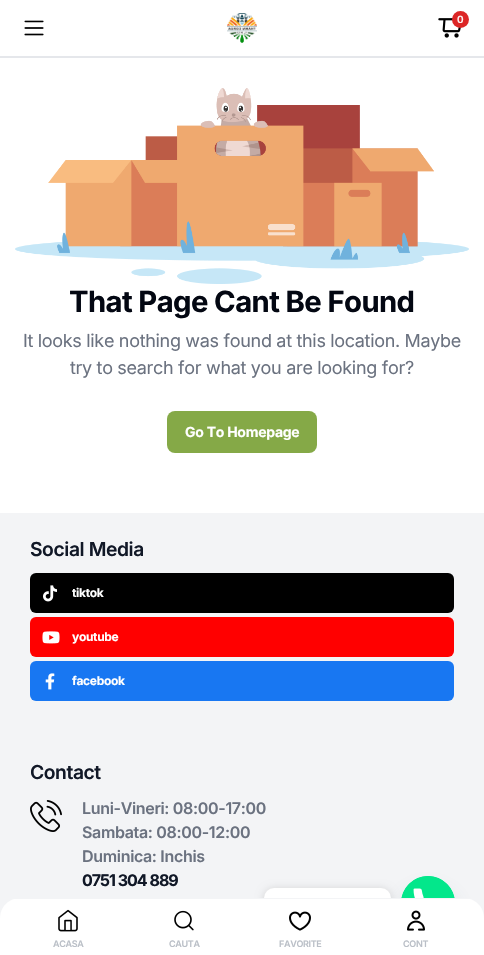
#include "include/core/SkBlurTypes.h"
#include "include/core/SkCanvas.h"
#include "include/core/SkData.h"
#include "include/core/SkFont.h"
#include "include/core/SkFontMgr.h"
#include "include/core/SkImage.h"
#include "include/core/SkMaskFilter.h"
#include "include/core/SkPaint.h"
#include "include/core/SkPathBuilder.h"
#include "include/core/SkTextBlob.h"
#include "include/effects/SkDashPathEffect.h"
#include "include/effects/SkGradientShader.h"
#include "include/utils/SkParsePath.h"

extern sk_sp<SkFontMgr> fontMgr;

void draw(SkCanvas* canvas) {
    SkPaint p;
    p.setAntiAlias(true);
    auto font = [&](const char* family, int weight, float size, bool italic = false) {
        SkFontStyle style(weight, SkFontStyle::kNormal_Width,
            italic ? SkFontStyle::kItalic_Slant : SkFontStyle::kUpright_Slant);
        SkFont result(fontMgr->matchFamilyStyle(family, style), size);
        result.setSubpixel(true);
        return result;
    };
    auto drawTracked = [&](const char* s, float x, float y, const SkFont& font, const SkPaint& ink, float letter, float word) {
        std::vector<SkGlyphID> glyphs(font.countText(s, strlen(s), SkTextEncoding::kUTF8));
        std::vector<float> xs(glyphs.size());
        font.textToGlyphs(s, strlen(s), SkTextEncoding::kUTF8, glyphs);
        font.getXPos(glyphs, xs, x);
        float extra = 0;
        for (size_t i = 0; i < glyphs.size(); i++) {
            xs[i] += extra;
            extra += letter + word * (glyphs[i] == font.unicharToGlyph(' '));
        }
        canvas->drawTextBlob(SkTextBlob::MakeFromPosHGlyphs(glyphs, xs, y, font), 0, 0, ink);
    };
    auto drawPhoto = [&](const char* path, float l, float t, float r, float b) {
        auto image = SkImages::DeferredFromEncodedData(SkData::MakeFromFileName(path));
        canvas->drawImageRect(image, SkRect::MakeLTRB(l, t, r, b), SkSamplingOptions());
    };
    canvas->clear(0xFFFFFFFF);
    p.setColor(0xFFE5E7EB);
    canvas->drawRect(SkRect::MakeLTRB(0, 56, 484, 58), p);
    drawPhoto("media/1.png", 24, 20, 44, 36);
    drawPhoto("media/2.png", 227, 13, 257, 43);
    drawPhoto("media/3.png", 438, 18, 461, 38);
    p.setColor(0xFFDC2626);
    canvas->drawCircle(460.5f, 19.5f, 8.5f, p);
    auto font1 = font("Inter", 600, 10);
    p.setColor(0xFFFEF2F2);
    drawTracked("0", 457, 23, font1, p, -0.32f, 0);
    drawPhoto("media/4.png", 15, 88, 469, 284);
    auto font2 = font("Inter", 700, 29.25f);
    p.setColor(0xFF030712);
    drawTracked("That Page Cant Be Found", 69, 312, font2, p, -0.6f, 0);
    auto font3 = font("Inter", 400, 18);
    p.setColor(0xFF6B7280);
    drawTracked("It looks like nothing was found at this location. Maybe", 23, 347, font3, p, -0.32f, 0);
    drawTracked("try to search for what you are looking for?", 70, 374, font3, p, -0.32f, 0);
    p.setColor(0xFF85A947);
    canvas->drawRoundRect(SkRect::MakeLTRB(167, 411, 317, 453), 8, 8, p);
    auto font4 = font("Inter", 700, 14);
    p.setColor(0xFFFFFFFF);
    drawTracked("Go To Homepage", 185, 437, font4, p, -0.25f, 0);
    p.setColor(0xFFF3F4F6);
    canvas->drawRect(SkRect::MakeLTRB(0, 513, 484, 918), p);
    auto font5 = font("Inter", 600, 19.25f);
    p.setColor(0xFF111827);
    drawTracked("Social Media", 30, 556, font5, p, -0.4f, 0);
    p.setColor(0xFF000000);
    canvas->drawRoundRect(SkRect::MakeLTRB(30, 573, 454, 613), 6, 6, p);
    drawPhoto("media/5.png", 43, 585, 57, 602);
    auto font6 = font("Inter", 700, 12);
    p.setColor(0xFFFFFFFF);
    drawTracked("tiktok", 72, 597, font6, p, -0.32f, 0);
    p.setColor(0xFFFF0000);
    canvas->drawRoundRect(SkRect::MakeLTRB(30, 617, 454, 657), 6, 6, p);
    drawPhoto("media/6.png", 42, 631, 60, 644);
    p.setColor(0xFFFFFFFF);
    drawTracked("youtube", 72, 641, font6, p, -0.32f, 0);
    p.setColor(0xFF1877F2);
    canvas->drawRoundRect(SkRect::MakeLTRB(30, 661, 454, 701), 6, 6, p);
    drawPhoto("media/7.png", 45, 673, 55, 690);
    p.setColor(0xFFFFFFFF);
    drawTracked("facebook", 72, 685, font6, p, -0.32f, 0);
    p.setColor(0xFF111827);
    drawTracked("Contact", 30, 779, font5, p, -0.4f, 0);
    drawPhoto("media/8.png", 30, 800, 62, 832);
    auto font7 = font("Inter", 600, 16);
    p.setColor(0xFF6B7280);
    {
        const struct { const char* s; float x, y; } items[] = {
            {"Luni-Vineri: 08:00-17:00", 82, 814},
            {"Sambata: 08:00-12:00", 82, 838},
            {"Duminica: Inchis", 82, 862},
        };
        for (auto [s, x, y] : items) {
            drawTracked(s, x, y, font7, p, -0.32f, 0);
        }
    }
    auto font8 = font("Inter", 700, 16);
    p.setColor(0xFF111827);
    drawTracked("0751 304 889", 82, 886, font8, p, -1, 0);
    p.setColor(0x2949687E);
    p.setMaskFilter(SkMaskFilter::MakeBlur(kNormal_SkBlurStyle, 12));
    canvas->drawRoundRect(SkRect::MakeLTRB(401, 892, 455, 946), 27, 27, p);
    p.setMaskFilter(nullptr);
    p.setColor(0xFF03E78B);
    canvas->drawCircle(428, 903, 27, p);
    drawPhoto("media/9.png", 401, 876, 455, 898);
    p.setColor(0x26000000);
    p.setMaskFilter(SkMaskFilter::MakeBlur(kNormal_SkBlurStyle, 4));
    canvas->drawRoundRect(SkRect::MakeLTRB(264, 889, 391, 920), 10, 10, p);
    p.setMaskFilter(nullptr);
    p.setColor(0xFFFFFFFF);
    canvas->drawRoundRect(SkRect::MakeLTRB(264, 888, 391, 919), 10, 10, p);
    canvas->drawPath(SkPathBuilder().moveTo(20, 898).lineTo(464, 898).cubicTo(475, 898, 484, 907, 484, 918).lineTo(484, 955).lineTo(0, 955).lineTo(0, 918).cubicTo(0, 907, 9, 898, 20, 898).close().detach(), p);
    p.setColor(0xFFF3F4F6);
    canvas->drawRect(SkRect::MakeLTRB(10, 898, 474, 899), p);
    drawPhoto("media/10.png", 58, 909, 78, 932);
    auto font9 = font("Inter", 600, 9);
    p.setColor(0xFFBABFC7);
    drawTracked("ACASA", 53, 947, font9, p, -0.32f, 0);
    drawPhoto("media/11.png", 174, 910, 194, 931);
    drawTracked("CAUTA", 169, 947, font9, p, -0.32f, 0);
    drawPhoto("media/12.png", 289, 911, 311, 931);
    drawTracked("FAVORITE", 279, 947, font9, p, -0.32f, 0);
    drawPhoto("media/13.png", 407, 910, 425, 931);
    drawTracked("CONT", 403, 947, font9, p, -0.32f, 0);
}
